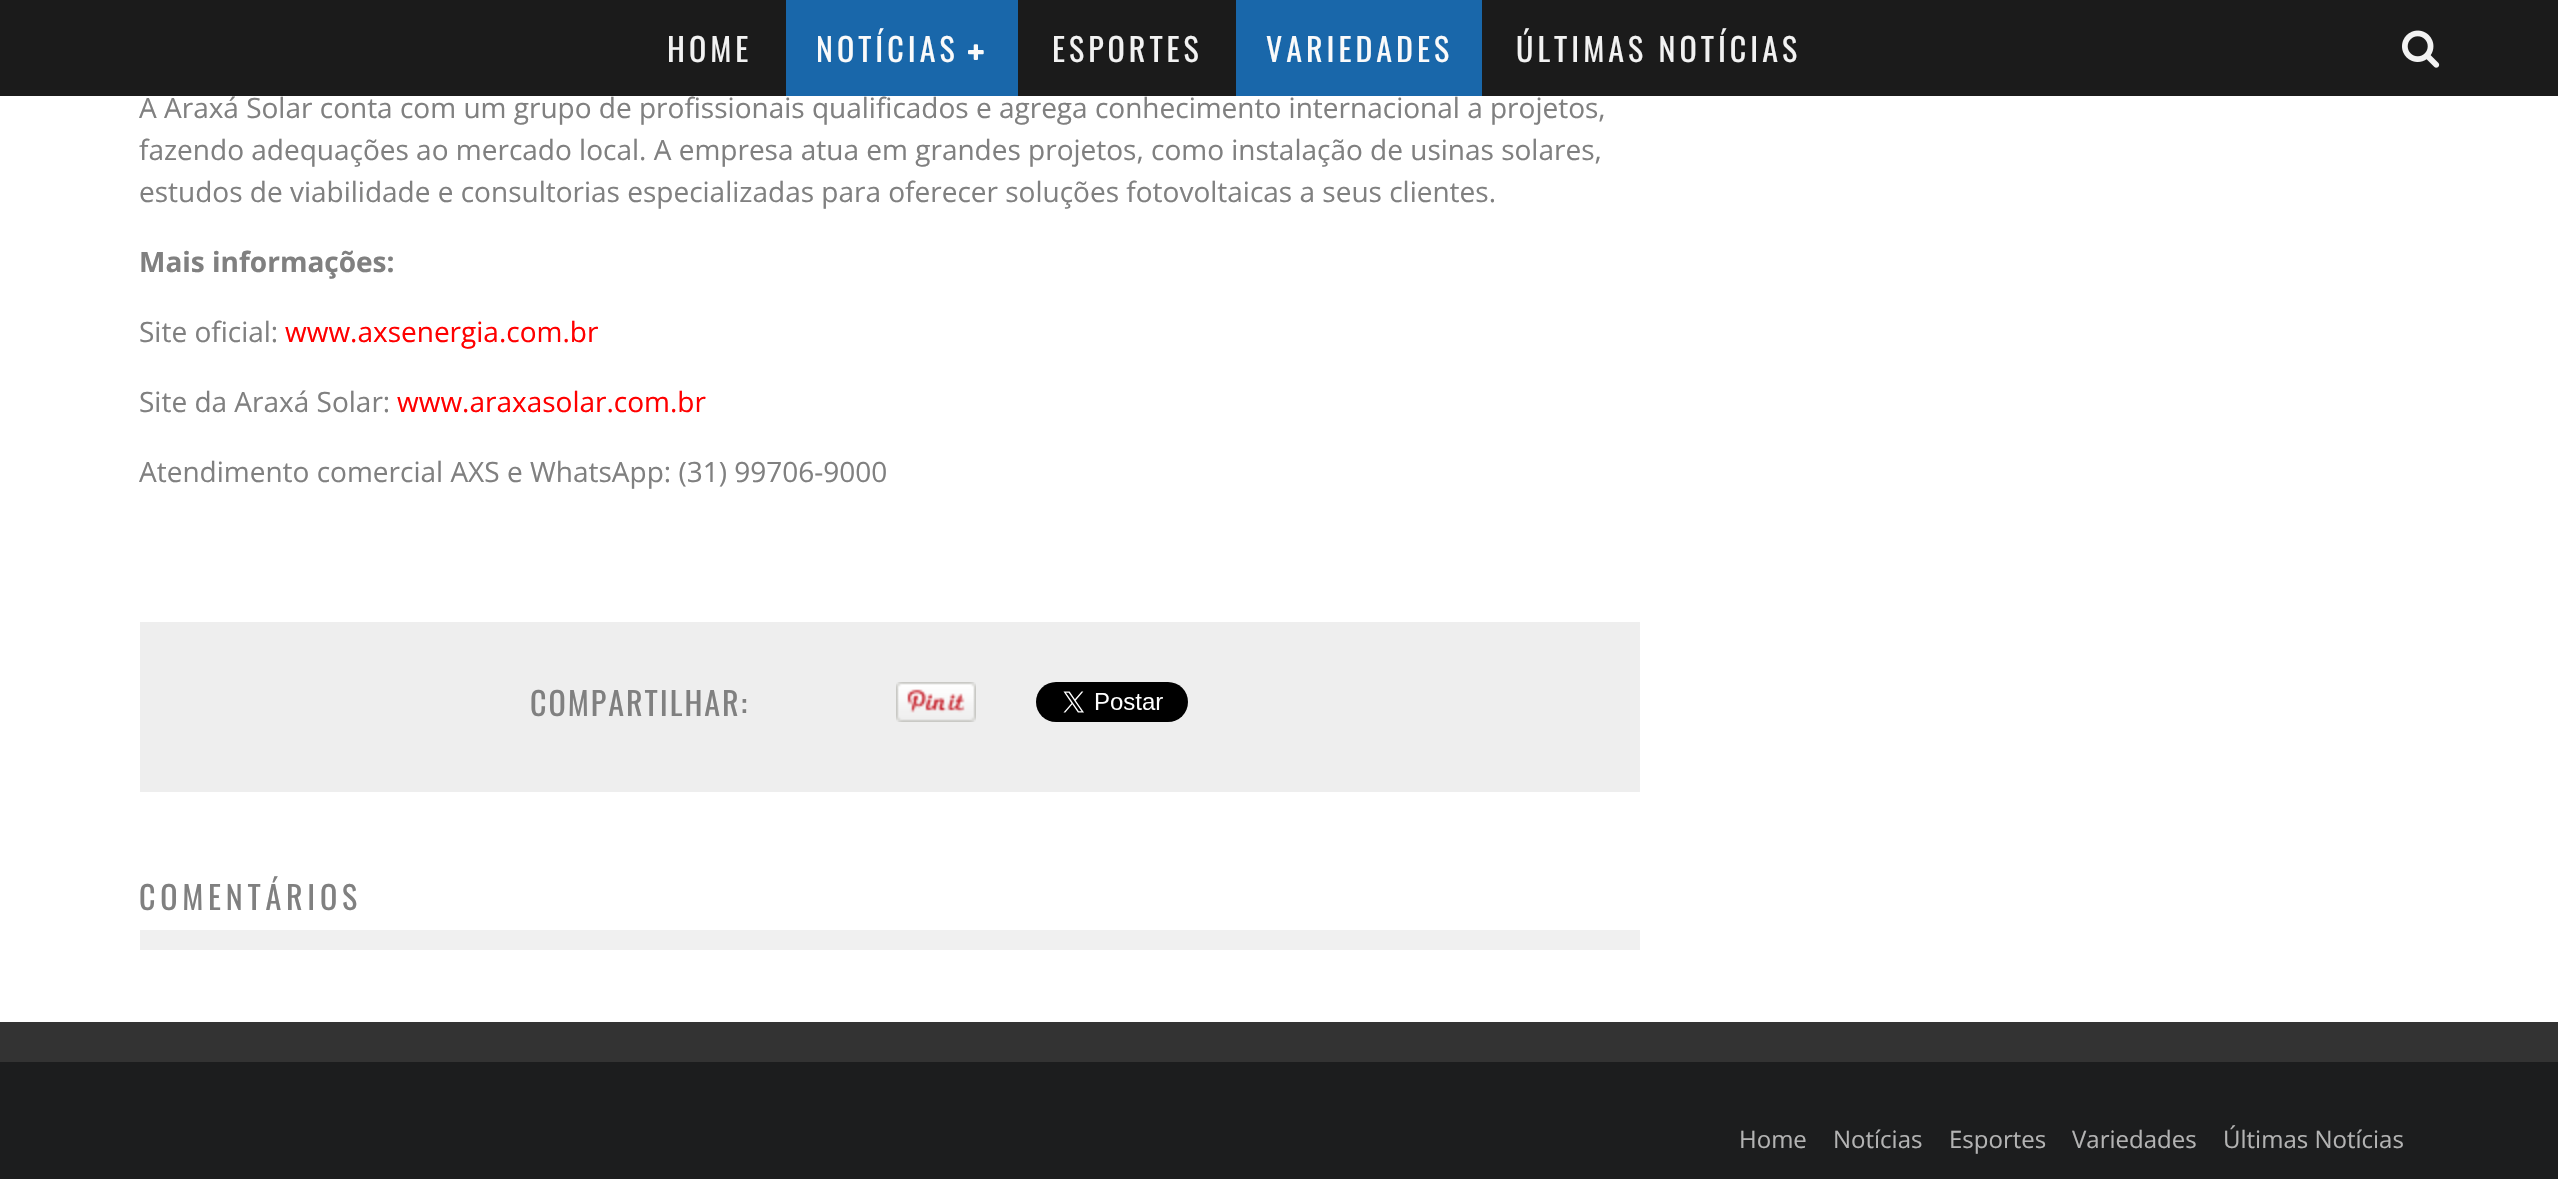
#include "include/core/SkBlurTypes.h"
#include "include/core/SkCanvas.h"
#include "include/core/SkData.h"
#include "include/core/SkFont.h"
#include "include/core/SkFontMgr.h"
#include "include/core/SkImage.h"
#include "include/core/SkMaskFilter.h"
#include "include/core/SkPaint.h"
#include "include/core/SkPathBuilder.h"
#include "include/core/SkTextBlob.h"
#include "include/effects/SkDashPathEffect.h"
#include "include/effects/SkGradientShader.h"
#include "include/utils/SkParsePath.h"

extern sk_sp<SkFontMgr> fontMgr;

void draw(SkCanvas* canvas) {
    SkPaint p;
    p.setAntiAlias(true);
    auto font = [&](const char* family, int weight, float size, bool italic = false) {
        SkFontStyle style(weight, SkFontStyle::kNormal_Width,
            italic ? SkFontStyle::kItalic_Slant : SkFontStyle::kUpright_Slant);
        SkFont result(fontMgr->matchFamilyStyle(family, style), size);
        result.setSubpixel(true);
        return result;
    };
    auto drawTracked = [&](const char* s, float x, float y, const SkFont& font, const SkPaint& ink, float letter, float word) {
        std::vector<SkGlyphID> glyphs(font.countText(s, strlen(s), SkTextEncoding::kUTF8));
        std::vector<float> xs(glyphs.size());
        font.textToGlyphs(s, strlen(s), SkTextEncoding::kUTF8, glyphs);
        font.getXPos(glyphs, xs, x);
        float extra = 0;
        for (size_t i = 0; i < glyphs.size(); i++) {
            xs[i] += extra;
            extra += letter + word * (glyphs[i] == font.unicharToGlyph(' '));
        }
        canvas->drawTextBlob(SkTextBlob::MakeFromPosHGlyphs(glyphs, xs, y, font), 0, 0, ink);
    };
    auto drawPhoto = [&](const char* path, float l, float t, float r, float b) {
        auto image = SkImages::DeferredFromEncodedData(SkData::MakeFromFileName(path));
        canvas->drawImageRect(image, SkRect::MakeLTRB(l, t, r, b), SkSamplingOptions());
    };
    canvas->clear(0xFFFFFFFF);
    p.setColor(0xFF1B1B1B);
    canvas->drawRect(SkRect::MakeLTRB(0, 0, 2558, 96), p);
    auto font1 = font("Oswald", 400, 32);
    p.setColor(0xFFF2F2F2);
    drawTracked("HOME", 667, 62, font1, p, 4, 0);
    p.setColor(0xFF1967AA);
    canvas->drawRect(SkRect::MakeLTRB(786, 0, 1018, 96), p);
    p.setColor(0xFFFAFAFA);
    drawTracked("NOTÍCIAS", 816, 62, font1, p, 4, 0);
    drawPhoto("media/1.png", 968, 44, 984, 60);
    p.setColor(0xFFF2F2F2);
    drawTracked("ESPORTES", 1052, 62, font1, p, 4, 0);
    p.setColor(0xFF1967AA);
    canvas->drawRect(SkRect::MakeLTRB(1236, 0, 1482, 96), p);
    p.setColor(0xFFFAFAFA);
    drawTracked("VARIEDADES", 1266, 62, font1, p, 4, 0);
    p.setColor(0xFFF2F2F2);
    drawTracked("ÚLTIMAS NOTÍCIAS", 1516, 62, font1, p, 4, 0);
    drawPhoto("media/2.png", 2402, 30, 2440, 68);
    auto font2 = font("Open Sans", 400, 28);
    p.setColor(0xFF808080);
    {
        const struct { const char* s; float x, y; } items[] = {
            {"A Araxá Solar conta com um grupo de profissionais qualificados e agrega conhecimento internacional a projetos,", 139, 118},
            {"fazendo adequações ao mercado local. A empresa atua em grandes projetos, como instalação de usinas solares,", 139, 160},
            {"estudos de viabilidade e consultorias especializadas para oferecer soluções fotovoltaicas a seus clientes.", 139, 202},
        };
        for (auto [s, x, y] : items) {
            canvas->drawString(s, x, y, font2, p);
        }
    }
    auto font3 = font("Open Sans", 700, 28);
    canvas->drawString("Mais informações:", 139, 272, font3, p);
    canvas->drawString("Site oficial:", 139, 342, font2, p);
    p.setColor(0xFFFF0000);
    canvas->drawString("www.axsenergia.com.br", 285, 342, font2, p);
    p.setColor(0xFF808080);
    canvas->drawString("Site da Araxá Solar:", 139, 412, font2, p);
    p.setColor(0xFFFF0000);
    canvas->drawString("www.araxasolar.com.br", 397, 412, font2, p);
    p.setColor(0xFF808080);
    canvas->drawString("Atendimento comercial AXS e WhatsApp: (31) 99706-9000", 139, 482, font2, p);
    p.setColor(0xFFEEEEEE);
    canvas->drawRect(SkRect::MakeLTRB(140, 622, 1640, 792), p);
    p.setColor(0xFF808080);
    drawTracked("COMPARTILHAR:", 530, 716, font1, p, 2, 0);
    drawPhoto("media/3.png", 896, 682, 976, 722);
    drawPhoto("media/4.png", 1036, 682, 1188, 722);
    p.setColor(0xFFF0F0F0);
    canvas->drawRect(SkRect::MakeLTRB(140, 930, 1640, 950), p);
    p.setColor(0xFF808080);
    drawTracked("COMENTÁRIOS", 139, 910, font1, p, 4.75f, 0);
    p.setColor(0xFF333333);
    canvas->drawRect(SkRect::MakeLTRB(0, 1022, 2558, 1062), p);
    p.setColor(0xFF1C1D1E);
    canvas->drawRect(SkRect::MakeLTRB(0, 1062, 2558, 1179), p);
    auto font4 = font("Open Sans", 400, 24);
    p.setColor(0xFFB3B3B3);
    {
        const struct { const char* s; float x, y; } items[] = {
            {"Home", 1739, 1148},
            {"Notícias", 1833, 1148},
            {"Esportes", 1949, 1148},
            {"Variedades", 2072, 1148},
            {"Últimas Notícias", 2223, 1148},
        };
        for (auto [s, x, y] : items) {
            canvas->drawString(s, x, y, font4, p);
        }
    }
}
